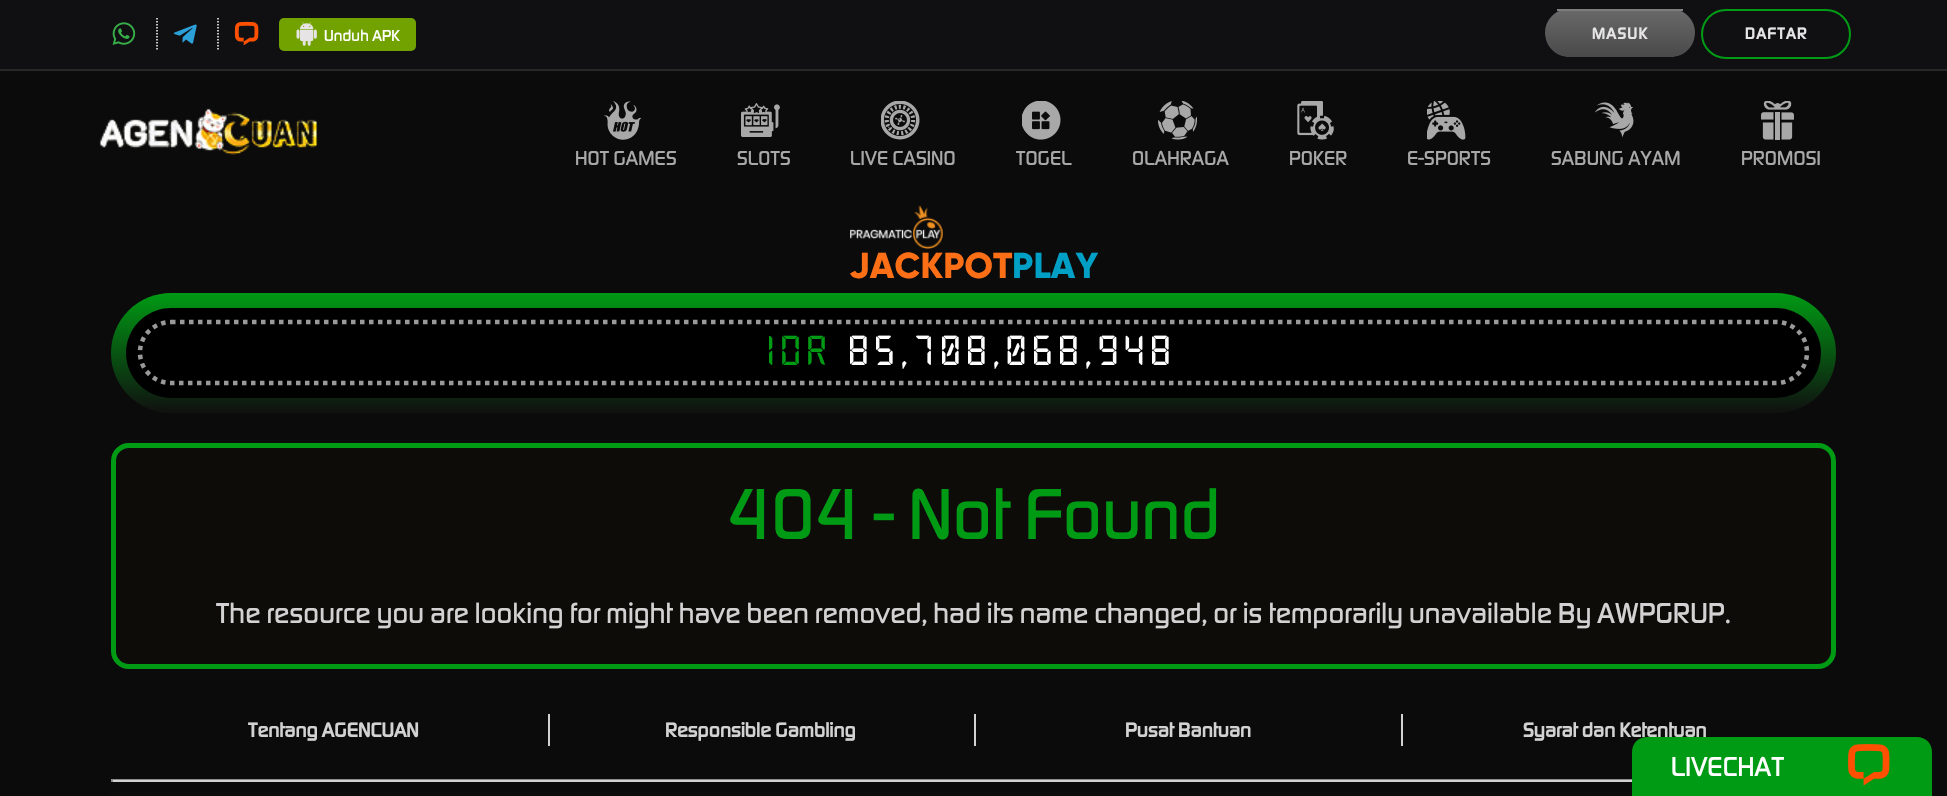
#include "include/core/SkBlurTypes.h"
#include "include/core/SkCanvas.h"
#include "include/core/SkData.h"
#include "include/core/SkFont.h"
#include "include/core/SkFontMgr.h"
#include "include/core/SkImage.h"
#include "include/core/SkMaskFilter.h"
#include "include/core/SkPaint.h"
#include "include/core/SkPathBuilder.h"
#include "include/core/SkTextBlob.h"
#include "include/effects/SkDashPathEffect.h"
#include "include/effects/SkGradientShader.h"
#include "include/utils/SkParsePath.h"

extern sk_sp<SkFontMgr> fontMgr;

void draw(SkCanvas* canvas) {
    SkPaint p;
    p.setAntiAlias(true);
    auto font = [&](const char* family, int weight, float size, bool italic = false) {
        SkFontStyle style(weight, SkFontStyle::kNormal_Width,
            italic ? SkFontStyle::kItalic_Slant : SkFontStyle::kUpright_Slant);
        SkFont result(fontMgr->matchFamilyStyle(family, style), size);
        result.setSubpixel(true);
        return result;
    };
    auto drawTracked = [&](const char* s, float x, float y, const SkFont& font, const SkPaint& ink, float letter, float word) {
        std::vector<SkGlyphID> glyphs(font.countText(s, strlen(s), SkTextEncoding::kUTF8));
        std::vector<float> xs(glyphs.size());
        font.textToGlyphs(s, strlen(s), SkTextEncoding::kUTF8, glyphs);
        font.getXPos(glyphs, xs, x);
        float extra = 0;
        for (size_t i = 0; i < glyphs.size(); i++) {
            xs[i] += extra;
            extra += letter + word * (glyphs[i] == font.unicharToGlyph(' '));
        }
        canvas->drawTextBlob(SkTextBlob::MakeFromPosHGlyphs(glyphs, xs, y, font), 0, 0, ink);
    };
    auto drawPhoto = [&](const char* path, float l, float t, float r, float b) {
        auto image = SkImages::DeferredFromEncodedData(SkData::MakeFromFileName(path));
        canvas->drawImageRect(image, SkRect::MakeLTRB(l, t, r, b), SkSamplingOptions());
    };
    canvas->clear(0xFF0B0B0B);
    p.setColor(0xFF101013);
    canvas->drawRect(SkRect::MakeLTRB(0, 0, 1947, 69), p);
    p.setStyle(SkPaint::kStroke_Style);
    p.setStrokeWidth(1.5f);
    p.setColor(0xFFFFFFFF);
    p.setPathEffect(SkDashPathEffect::Make({{1.5f, 1.5f}}, 0));
    canvas->drawPath(SkPathBuilder().moveTo(157, 18).lineTo(157, 51).detach(), p);
    p.setPathEffect(nullptr);
    drawPhoto("media/1.png", 112, 22, 136, 45);
    p.setPathEffect(SkDashPathEffect::Make({{1.5f, 1.5f}}, 0));
    canvas->drawPath(SkPathBuilder().moveTo(218, 18).lineTo(218, 51).detach(), p);
    p.setPathEffect(nullptr);
    drawPhoto("media/2.png", 173, 24, 197, 44);
    drawPhoto("media/3.png", 234, 21, 259, 46);
    p.setStyle(SkPaint::kFill_Style);
    p.setColor(0xFF72A200);
    canvas->drawRoundRect(SkRect::MakeLTRB(279, 18, 416, 51), 5, 5, p);
    drawPhoto("media/4.png", 296, 22, 317, 46);
    auto font1 = font("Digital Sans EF", 500, 16.5f);
    p.setColor(0xFFFFFFFF);
    drawTracked("Unduh APK", 324, 41, font1, p, 0.15f, 0);
    canvas->save();
    canvas->clipPath(SkPathBuilder().moveTo(1569, 9).lineTo(1671, 9).cubicTo(1684.5f, 9, 1695, 19.5f, 1695, 33).cubicTo(1695, 46.5f, 1684.5f, 57, 1671, 57).lineTo(1569, 57).cubicTo(1555.5f, 57, 1545, 46.5f, 1545, 33).cubicTo(1545, 19.5f, 1555.5f, 9, 1569, 9).close().detach(), true);
    {
        const SkColor colors[] = {0xFF696969, 0xFF494949};
        const float stops[] = {0, 1};
        const SkPoint ends[] = {{1620, 10}, {1620, 57}};
        p.setShader(SkGradientShader::MakeLinear(ends, colors, stops, 2, SkTileMode::kClamp));
        p.setAlpha(255);
    }
    canvas->drawPath(SkPathBuilder().moveTo(1545, 11).lineTo(1695, 11).lineTo(1695, 33).cubicTo(1695, 46.5f, 1684.5f, 57, 1671, 57).lineTo(1569, 57).cubicTo(1555.5f, 57, 1545, 46.5f, 1545, 33).close().detach(), p);
    canvas->restore();
    p.setShader(nullptr);
    p.setColor(0xFF7E7E7E);
    canvas->drawRect(SkRect::MakeLTRB(1557, 9, 1683, 11), p);
    auto font2 = font("Digital Sans EF", 700, 16.5f);
    p.setColor(0xFFE6E4E5);
    drawTracked("MASUK", 1592, 39, font2, p, 1.5f, 0);
    p.setStyle(SkPaint::kStroke_Style);
    p.setStrokeWidth(2);
    p.setColor(0xFF009B14);
    canvas->drawRoundRect(SkRect::MakeLTRB(1702, 10, 1850, 58), 24, 24, p);
    p.setStyle(SkPaint::kFill_Style);
    p.setColor(0xFFE6E4E5);
    drawTracked("DAFTAR", 1745, 39, font2, p, 1.5f, 0);
    p.setColor(0xFF282828);
    canvas->drawRect(SkRect::MakeLTRB(0, 69, 1947, 71), p);
    drawPhoto("media/5.png", 99, 108, 318, 155);
    drawPhoto("media/6.png", 603, 101, 642, 140);
    auto font3 = font("Digital Sans EF", 500, 21);
    p.setColor(0xFFA8A8A8);
    drawTracked("HOT GAMES", 575, 165, font3, p, 0.15f, 0);
    drawPhoto("media/7.png", 741, 103, 780, 137);
    drawTracked("SLOTS", 737, 165, font3, p, 0.15f, 0);
    drawPhoto("media/8.png", 881, 101, 920, 140);
    drawTracked("LIVE CASINO", 850, 165, font3, p, 0.15f, 0);
    drawPhoto("media/9.png", 1022, 101, 1061, 140);
    drawTracked("TOGEL", 1016, 165, font3, p, 0.15f, 0);
    drawPhoto("media/10.png", 1158, 101, 1197, 140);
    drawTracked("OLAHRAGA", 1132, 165, font3, p, 0.15f, 0);
    drawPhoto("media/11.png", 1297, 101, 1334, 140);
    drawTracked("POKER", 1289, 165, font3, p, 0.15f, 0);
    drawPhoto("media/12.png", 1427, 101, 1466, 140);
    drawTracked("E-SPORTS", 1407, 165, font3, p, 0.15f, 0);
    drawPhoto("media/13.png", 1595, 102, 1634, 138);
    drawTracked("SABUNG AYAM", 1551, 165, font3, p, 0.15f, 0);
    drawPhoto("media/14.png", 1761, 101, 1794, 140);
    drawTracked("PROMOSI", 1741, 165, font3, p, 0.15f, 0);
    drawPhoto("media/15.png", 850, 205, 943, 249);
    auto font4 = font("Gilroy", 800, 36);
    p.setColor(0xFFFD6F16);
    drawTracked("JACKPOT", 849, 278, font4, p, 0.15f, 0);
    p.setColor(0xFF009FC5);
    drawTracked("PLAY", 1012, 278, font4, p, 0.15f, 0);
    {
        const SkColor colors[] = {0xFF009B14, 0xFF101010};
        const float stops[] = {0, 1};
        const SkPoint ends[] = {{974, 292}, {974, 413}};
        p.setShader(SkGradientShader::MakeLinear(ends, colors, stops, 2, SkTileMode::kClamp));
        p.setAlpha(255);
    }
    canvas->drawRoundRect(SkRect::MakeLTRB(111, 293, 1836, 413), 60, 60, p);
    p.setShader(nullptr);
    p.setColor(0xFF000000);
    canvas->drawRoundRect(SkRect::MakeLTRB(126, 308, 1821, 398), 45, 45, p);
    p.setStyle(SkPaint::kStroke_Style);
    p.setStrokeWidth(4.5f);
    p.setColor(0xFF999999);
    p.setPathEffect(SkDashPathEffect::Make({{4.5f, 4.5f}}, 0));
    canvas->drawPath(SkPathBuilder().moveTo(171, 322).lineTo(1776, 322).cubicTo(1793, 322, 1807, 335.5f, 1807, 352.5f).cubicTo(1807, 369.5f, 1793, 383, 1776, 383).lineTo(171, 383).cubicTo(154, 383, 140, 369.5f, 140, 352.5f).cubicTo(140, 335.5f, 154, 322, 171, 322).close().detach(), p);
    p.setPathEffect(nullptr);
    auto font5 = font("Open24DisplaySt", 400, 42);
    p.setStyle(SkPaint::kFill_Style);
    p.setColor(0xFF009B14);
    drawTracked("IDR", 769, 365, font5, p, 7.5f, 0);
    p.setColor(0xFFFFFFFF);
    drawTracked("85,708,068,948", 850, 365, font5, p, 7.5f, 0);
    p.setColor(0xFF0E0C09);
    canvas->drawRoundRect(SkRect::MakeLTRB(113.5f, 445.5f, 1833.5f, 666.5f), 15.5f, 15.5f, p);
    p.setStyle(SkPaint::kStroke_Style);
    p.setStrokeWidth(5);
    p.setColor(0xFF009B14);
    canvas->drawRoundRect(SkRect::MakeLTRB(113.5f, 445.5f, 1833.5f, 666.5f), 15.5f, 15.5f, p);
    auto font6 = font("Digital Sans EF", 500, 75);
    p.setStyle(SkPaint::kFill_Style);
    drawTracked("404 - Not Found", 727, 539, font6, p, 0.15f, 0);
    auto font7 = font("Digital Sans EF", 500, 30);
    p.setColor(0xFFD2D2D2);
    drawTracked("The resource you are looking for might have been removed, had its name changed, or is temporarily unavailable By AWPGRUP.", 216, 623, font7, p, 0.15f, 0);
    auto font8 = font("Digital Sans EF", 700, 21);
    drawTracked("Tentang AGENCUAN", 248, 737, font8, p, 0.15f, 0);
    canvas->drawRect(SkRect::MakeLTRB(548, 714, 550, 746), p);
    drawTracked("Responsible Gambling", 665, 737, font8, p, 0.15f, 0);
    canvas->drawRect(SkRect::MakeLTRB(974, 714, 976, 746), p);
    drawTracked("Pusat Bantuan", 1125, 737, font8, p, 0.15f, 0);
    canvas->drawRect(SkRect::MakeLTRB(1401, 714, 1403, 746), p);
    drawTracked("Syarat dan Ketentuan", 1523, 737, font8, p, 0.15f, 0);
    {
        const struct { float l, t, r, b; SkColor color; } items[] = {
            {111, 779, 1632, 780, 0xFF8C8C8C},
            {111, 780, 1632, 782, 0xFFD2D2D2},
            {111, 779, 113, 782, 0xFF8C8C8C},
        };
        for (auto [l, t, r, b, color] : items) {
            p.setColor(color);
            canvas->drawRect(SkRect::MakeLTRB(l, t, r, b), p);
        }
    }
    p.setStyle(SkPaint::kStroke_Style);
    p.setStrokeWidth(1.5f);
    p.setColor(0xFF101013);
    p.setPathEffect(SkDashPathEffect::Make({{1.5f, 1.5f}}, 0));
    canvas->drawPath(SkPathBuilder().moveTo(111, 793).lineTo(1836, 793).detach(), p);
    p.setPathEffect(nullptr);
    p.setStyle(SkPaint::kFill_Style);
    p.setColor(0xFF0E0C09);
    canvas->drawRect(SkRect::MakeLTRB(111, 794, 1632, 796), p);
    p.setColor(0xFF009B14);
    canvas->drawPath(SkPathBuilder().moveTo(1647, 737).lineTo(1917, 737).cubicTo(1925.5f, 737, 1932, 743.5f, 1932, 752).lineTo(1932, 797).lineTo(1632, 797).lineTo(1632, 752).cubicTo(1632, 743.5f, 1638.5f, 737, 1647, 737).close().detach(), p);
    auto font9 = font("Digital Sans EF", 500, 28.5f);
    p.setColor(0xFFFFFFFF);
    drawTracked("LIVECHAT", 1671, 776, font9, p, 0.15f, 0);
    drawPhoto("media/16.png", 1848, 744, 1890, 786);
}
